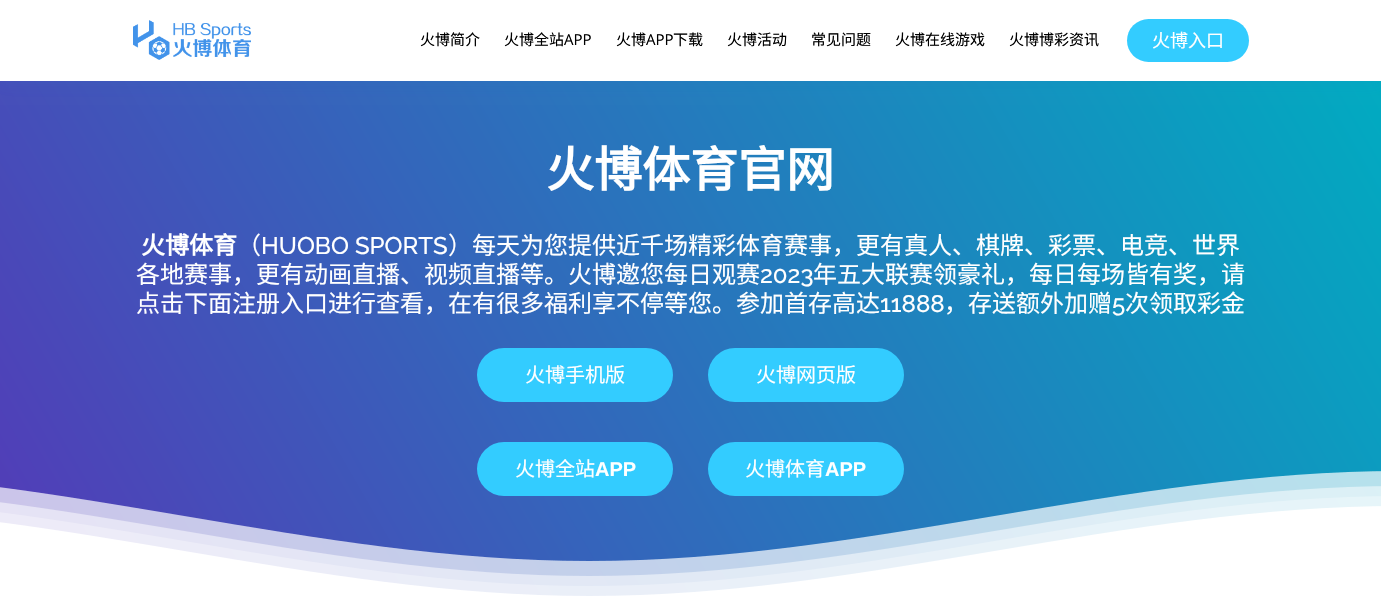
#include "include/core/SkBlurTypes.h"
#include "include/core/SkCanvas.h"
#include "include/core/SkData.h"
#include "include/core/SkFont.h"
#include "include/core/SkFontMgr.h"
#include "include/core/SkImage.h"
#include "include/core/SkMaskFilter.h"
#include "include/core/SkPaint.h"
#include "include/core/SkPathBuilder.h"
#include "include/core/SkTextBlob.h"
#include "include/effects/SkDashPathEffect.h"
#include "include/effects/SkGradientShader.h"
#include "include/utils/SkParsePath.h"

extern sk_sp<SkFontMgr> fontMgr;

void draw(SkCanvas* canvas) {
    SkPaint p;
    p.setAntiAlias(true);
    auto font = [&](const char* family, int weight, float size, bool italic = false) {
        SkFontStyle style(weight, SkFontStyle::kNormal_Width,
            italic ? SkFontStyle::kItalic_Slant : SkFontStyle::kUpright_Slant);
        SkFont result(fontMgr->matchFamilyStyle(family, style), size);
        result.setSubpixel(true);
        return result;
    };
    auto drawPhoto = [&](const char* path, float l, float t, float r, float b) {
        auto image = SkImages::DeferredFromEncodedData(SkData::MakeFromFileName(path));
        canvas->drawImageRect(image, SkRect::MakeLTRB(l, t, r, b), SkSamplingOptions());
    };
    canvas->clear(0xFFFFFFFF);
    {
        const SkColor colors[] = {0xFF543AB7, 0xFF00ACC1};
        const float stops[] = {0, 1};
        const SkPoint ends[] = {{53, 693}, {1328, -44}};
        p.setShader(SkGradientShader::MakeLinear(ends, colors, stops, 2, SkTileMode::kClamp));
        p.setAlpha(255);
    }
    canvas->drawRect(SkRect::MakeLTRB(0, 81, 1381, 596), p);
    p.setShader(nullptr);
    p.setColor(0x1A1977CC);
    p.setMaskFilter(SkMaskFilter::MakeBlur(kNormal_SkBlurStyle, 7.5f));
    canvas->drawRect(SkRect::MakeLTRB(0, 2, 1381, 83), p);
    p.setMaskFilter(nullptr);
    p.setColor(0xFFFFFFFF);
    canvas->drawRect(SkRect::MakeLTRB(0, 0, 1381, 81), p);
    drawPhoto("media/1.png", 133, 20, 251, 60);
    auto font1 = font("Noto Sans CJK SC", 400, 15);
    p.setColor(0xFF000000);
    canvas->drawString("火博简介", 420, 45, font1, p);
    canvas->drawString("火博全站", 504, 45, font1, p);
    auto font2 = font("Open Sans", 400, 15);
    canvas->drawString("APP", 564, 45, font2, p);
    canvas->drawString("火博", 616, 45, font1, p);
    canvas->drawString("APP", 646, 45, font2, p);
    {
        const struct { const char* s; float x, y; } items[] = {
            {"下载", 673, 45},
            {"火博活动", 727, 45},
            {"常见问题", 811, 45},
            {"火博在线游戏", 895, 45},
            {"火博博彩资讯", 1009, 45},
        };
        for (auto [s, x, y] : items) {
            canvas->drawString(s, x, y, font1, p);
        }
    }
    p.setColor(0xFF33CCFF);
    canvas->drawRoundRect(SkRect::MakeLTRB(1127, 19, 1249, 62), 21.5f, 21.5f, p);
    auto font3 = font("Noto Sans CJK SC", 400, 18);
    p.setColor(0xFFFFFFFF);
    canvas->drawString("火博入口", 1152, 47, font3, p);
    auto font4 = font("Noto Sans CJK SC", 700, 48);
    canvas->drawString("火博体育官网", 546, 187, font4, p);
    auto font5 = font("Noto Sans CJK SC", 700, 24);
    canvas->drawString("火博体育", 141, 254, font5, p);
    auto font6 = font("Noto Sans CJK SC", 400, 24);
    canvas->drawString("（", 237, 254, font6, p);
    auto font7 = font("Raleway", 500, 24);
    canvas->drawString("HUOBO SPORTS", 261, 254, font7, p);
    canvas->drawString("）每天为您提供近千场精彩体育赛事，更有真人、棋牌、彩票、电竞、世界", 448, 254, font6, p);
    canvas->drawString("各地赛事，更有动画直播、视频直播等。火博邀您每日观赛", 136, 283, font6, p);
    canvas->drawString("2023", 760, 283, font7, p);
    canvas->drawString("年五大联赛领豪礼，每日每场皆有奖，请", 813, 283, font6, p);
    canvas->drawString("点击下面注册入口进行查看，在有很多福利享不停等您。参加首存高达", 136, 312, font6, p);
    canvas->drawString("11888", 880, 312, font7, p);
    canvas->drawString("，存送额外加赠", 944, 312, font6, p);
    canvas->drawString("5", 1112, 312, font7, p);
    canvas->drawString("次领取彩金", 1125, 312, font6, p);
    p.setColor(0xFF33CCFF);
    canvas->drawRoundRect(SkRect::MakeLTRB(477, 348, 673, 402), 27, 27, p);
    auto font8 = font("Noto Sans CJK SC", 400, 20);
    p.setColor(0xFFFFFFFF);
    canvas->drawString("火博手机版", 525, 382, font8, p);
    p.setColor(0xFF33CCFF);
    canvas->drawRoundRect(SkRect::MakeLTRB(708, 348, 904, 402), 27, 27, p);
    p.setColor(0xFFFFFFFF);
    canvas->drawString("火博网页版", 756, 382, font8, p);
    p.setColor(0xFF33CCFF);
    canvas->drawRoundRect(SkRect::MakeLTRB(477, 442, 673, 496), 27, 27, p);
    p.setColor(0xFFFFFFFF);
    canvas->drawString("火博全站", 515, 476, font8, p);
    auto font9 = font("Liberation Sans", 700, 20);
    canvas->drawString("APP", 595, 476, font9, p);
    p.setColor(0xFF33CCFF);
    canvas->drawRoundRect(SkRect::MakeLTRB(708, 442, 904, 496), 27, 27, p);
    p.setColor(0xFFFFFFFF);
    canvas->drawString("火博体育", 745, 476, font8, p);
    canvas->drawString("APP", 825, 476, font9, p);
    drawPhoto("media/2.png", 0, 471, 1381, 601);
}
